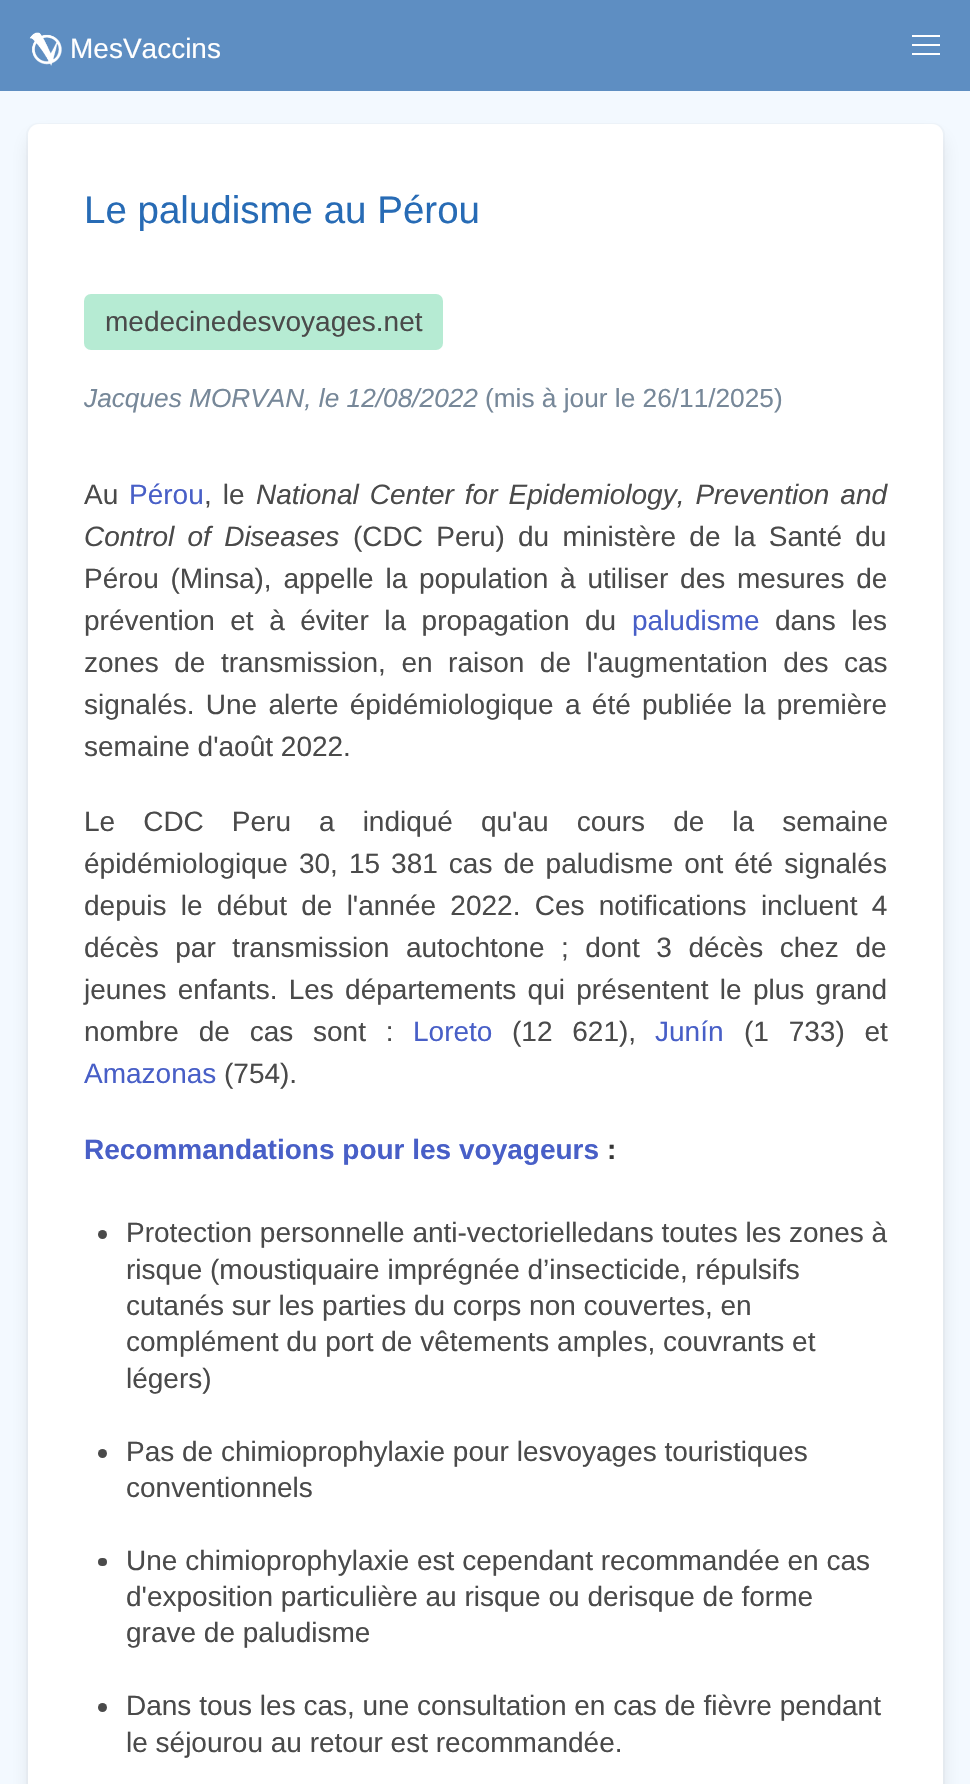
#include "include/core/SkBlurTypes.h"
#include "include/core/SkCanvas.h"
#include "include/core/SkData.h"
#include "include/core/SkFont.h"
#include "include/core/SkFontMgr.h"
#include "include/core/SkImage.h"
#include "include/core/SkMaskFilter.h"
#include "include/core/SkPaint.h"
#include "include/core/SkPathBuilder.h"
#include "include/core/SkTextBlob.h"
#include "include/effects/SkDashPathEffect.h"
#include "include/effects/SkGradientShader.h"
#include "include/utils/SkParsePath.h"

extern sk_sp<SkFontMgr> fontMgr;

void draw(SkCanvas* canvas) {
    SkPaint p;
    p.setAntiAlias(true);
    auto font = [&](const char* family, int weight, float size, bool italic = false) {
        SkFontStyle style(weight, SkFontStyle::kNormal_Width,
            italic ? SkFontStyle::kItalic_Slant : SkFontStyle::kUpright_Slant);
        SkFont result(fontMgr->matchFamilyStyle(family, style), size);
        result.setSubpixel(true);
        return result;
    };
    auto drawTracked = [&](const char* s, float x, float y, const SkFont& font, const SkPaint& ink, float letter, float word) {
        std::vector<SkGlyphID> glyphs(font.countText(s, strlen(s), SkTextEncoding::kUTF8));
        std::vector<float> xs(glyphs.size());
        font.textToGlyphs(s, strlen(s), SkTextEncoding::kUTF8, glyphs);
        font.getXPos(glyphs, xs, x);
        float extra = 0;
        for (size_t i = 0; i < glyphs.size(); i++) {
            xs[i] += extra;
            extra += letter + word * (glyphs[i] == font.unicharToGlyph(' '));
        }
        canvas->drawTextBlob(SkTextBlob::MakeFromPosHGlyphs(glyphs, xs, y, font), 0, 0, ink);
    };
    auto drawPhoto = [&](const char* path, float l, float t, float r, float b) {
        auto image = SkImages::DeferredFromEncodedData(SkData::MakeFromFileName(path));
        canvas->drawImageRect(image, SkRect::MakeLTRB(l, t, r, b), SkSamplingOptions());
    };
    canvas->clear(0xFFF3F9FF);
    p.setColor(0xFF5E8EC2);
    canvas->drawRect(SkRect::MakeLTRB(0, 0, 970, 91), p);
    drawPhoto("media/1.png", 29, 32, 62, 66);
    auto font1 = font("Liberation Sans", 400, 28);
    p.setColor(0xFFFFFFFF);
    canvas->drawString("MesVaccins", 70, 58, font1, p);
    {
        const struct { float l, t, r, b; SkColor color; } items[] = {
            {912, 35, 940, 37, 0xFFFFFFFF},
            {912, 44, 940, 46, 0xFFFFFFFF},
            {912, 53, 940, 55, 0xFFFFFFFF},
        };
        for (auto [l, t, r, b, color] : items) {
            p.setColor(color);
            canvas->drawRect(SkRect::MakeLTRB(l, t, r, b), p);
        }
    }
    p.setStyle(SkPaint::kStroke_Style);
    p.setStrokeWidth(2);
    p.setColor(0xFFEEF4FA);
    canvas->drawRoundRect(SkRect::MakeLTRB(27, 124, 944, 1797), 11, 11, p);
    p.setStyle(SkPaint::kFill_Style);
    p.setColor(0x1A0A0A0A);
    p.setMaskFilter(SkMaskFilter::MakeBlur(kNormal_SkBlurStyle, 10));
    canvas->drawRoundRect(SkRect::MakeLTRB(30, 137, 942, 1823), 9, 9, p);
    p.setMaskFilter(nullptr);
    p.setColor(0xFFFFFFFF);
    canvas->drawRoundRect(SkRect::MakeLTRB(28, 124, 943, 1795), 11, 11, p);
    auto font2 = font("Liberation Sans", 400, 38.5f);
    p.setColor(0xFF276BB5);
    canvas->drawString("Le paludisme au Pérou", 84, 223, font2, p);
    p.setColor(0xFFB6EBD3);
    canvas->drawRoundRect(SkRect::MakeLTRB(84, 294, 443, 350), 7, 7, p);
    p.setColor(0xFF4A4A4A);
    canvas->drawString("medecinedesvoyages.net", 105, 331, font1, p);
    auto font3 = font("Liberation Sans", 400, 26.25f, true);
    p.setColor(0xFF778899);
    canvas->drawString("Jacques MORVAN, le 12/08/2022", 84, 407, font3, p);
    auto font4 = font("Liberation Sans", 400, 26.25f);
    canvas->drawString("(mis à jour le 26/11/2025)", 485, 407, font4, p);
    p.setColor(0xFF4A4A4A);
    canvas->drawString("Au", 84, 504, font1, p);
    p.setColor(0xFF485FC7);
    canvas->drawString("Pérou", 129, 504, font1, p);
    p.setColor(0xFF4A4A4A);
    drawTracked(", le", 204, 504, font1, p, 0, 3.25f);
    auto font5 = font("Liberation Sans", 400, 28, true);
    drawTracked("National Center for Epidemiology, Prevention and", 256, 504, font5, p, 0, 3.25f);
    drawTracked("Control of Diseases", 84, 546, font5, p, 0, 5.5f);
    drawTracked("(CDC Peru) du ministère de la Santé du", 353, 546, font1, p, 0, 5.5f);
    drawTracked("Pérou (Minsa), appelle la population à utiliser des mesures de", 84, 588, font1, p, 0, 4);
    drawTracked("prévention et à éviter la propagation du", 84, 630, font1, p, 0, 7.75f);
    p.setColor(0xFF485FC7);
    canvas->drawString("paludisme", 632, 630, font1, p);
    p.setColor(0xFF4A4A4A);
    drawTracked("dans les", 775, 630, font1, p, 0, 7.75f);
    drawTracked("zones de transmission, en raison de l'augmentation des cas", 84, 672, font1, p, 0, 7.75f);
    drawTracked("signalés. Une alerte épidémiologique a été publiée la première", 84, 714, font1, p, 0, 3.5f);
    canvas->drawString("semaine d'août 2022.", 84, 756, font1, p);
    drawTracked("Le CDC Peru a indiqué qu'au cours de la semaine", 84, 831, font1, p, 0, 20.25f);
    drawTracked("épidémiologique 30, 15 381 cas de paludisme ont été signalés", 84, 873, font1, p, 0, 3.25f);
    drawTracked("depuis le début de l'année 2022. Ces notifications incluent 4", 84, 915, font1, p, 0, 6.5f);
    drawTracked("décès par transmission autochtone ; dont 3 décès chez de", 84, 957, font1, p, 0, 8.75f);
    drawTracked("jeunes enfants. Les départements qui présentent le plus grand", 84, 999, font1, p, 0, 3.5f);
    drawTracked("nombre de cas sont :", 84, 1041, font1, p, 0, 12);
    p.setColor(0xFF485FC7);
    canvas->drawString("Loreto", 413, 1041, font1, p);
    p.setColor(0xFF4A4A4A);
    drawTracked("(12 621),", 512, 1041, font1, p, 0, 12);
    p.setColor(0xFF485FC7);
    canvas->drawString("Junín", 655, 1041, font1, p);
    p.setColor(0xFF4A4A4A);
    drawTracked("(1 733) et", 744, 1041, font1, p, 0, 12);
    p.setColor(0xFF485FC7);
    canvas->drawString("Amazonas", 84, 1083, font1, p);
    p.setColor(0xFF4A4A4A);
    canvas->drawString("(754).", 224, 1083, font1, p);
    auto font6 = font("Liberation Sans", 700, 28);
    p.setColor(0xFF485FC7);
    canvas->drawString("Recommandations pour les voyageurs", 84, 1159, font6, p);
    p.setColor(0xFF363636);
    canvas->drawString(":", 607, 1159, font6, p);
    p.setColor(0xFF4A4A4A);
    canvas->drawCircle(102.5f, 1234.5f, 4.5f, p);
    {
        const struct { const char* s; float x, y; } items[] = {
            {"Protection personnelle anti-vectorielledans toutes les zones à", 126, 1242},
            {"risque (moustiquaire imprégnée d’insecticide, répulsifs", 126, 1279},
            {"cutanés sur les parties du corps non couvertes, en", 126, 1315},
            {"complément du port de vêtements amples, couvrants et", 126, 1351},
            {"légers)", 126, 1388},
        };
        for (auto [s, x, y] : items) {
            canvas->drawString(s, x, y, font1, p);
        }
    }
    canvas->drawCircle(102.5f, 1453.5f, 4.5f, p);
    canvas->drawString("Pas de chimioprophylaxie pour lesvoyages touristiques", 126, 1461, font1, p);
    canvas->drawString("conventionnels", 126, 1497, font1, p);
    canvas->drawRoundRect(SkRect::MakeLTRB(98, 1558, 107, 1566), 4, 4, p);
    {
        const struct { const char* s; float x, y; } items[] = {
            {"Une chimioprophylaxie est cependant recommandée en cas", 126, 1570},
            {"d'exposition particulière au risque ou derisque de forme", 126, 1606},
            {"grave de paludisme", 126, 1642},
        };
        for (auto [s, x, y] : items) {
            canvas->drawString(s, x, y, font1, p);
        }
    }
    canvas->drawCircle(102.5f, 1707.5f, 4.5f, p);
    canvas->drawString("Dans tous les cas, une consultation en cas de fièvre pendant", 126, 1715, font1, p);
    canvas->drawString("le séjourou au retour est recommandée.", 126, 1752, font1, p);
}
